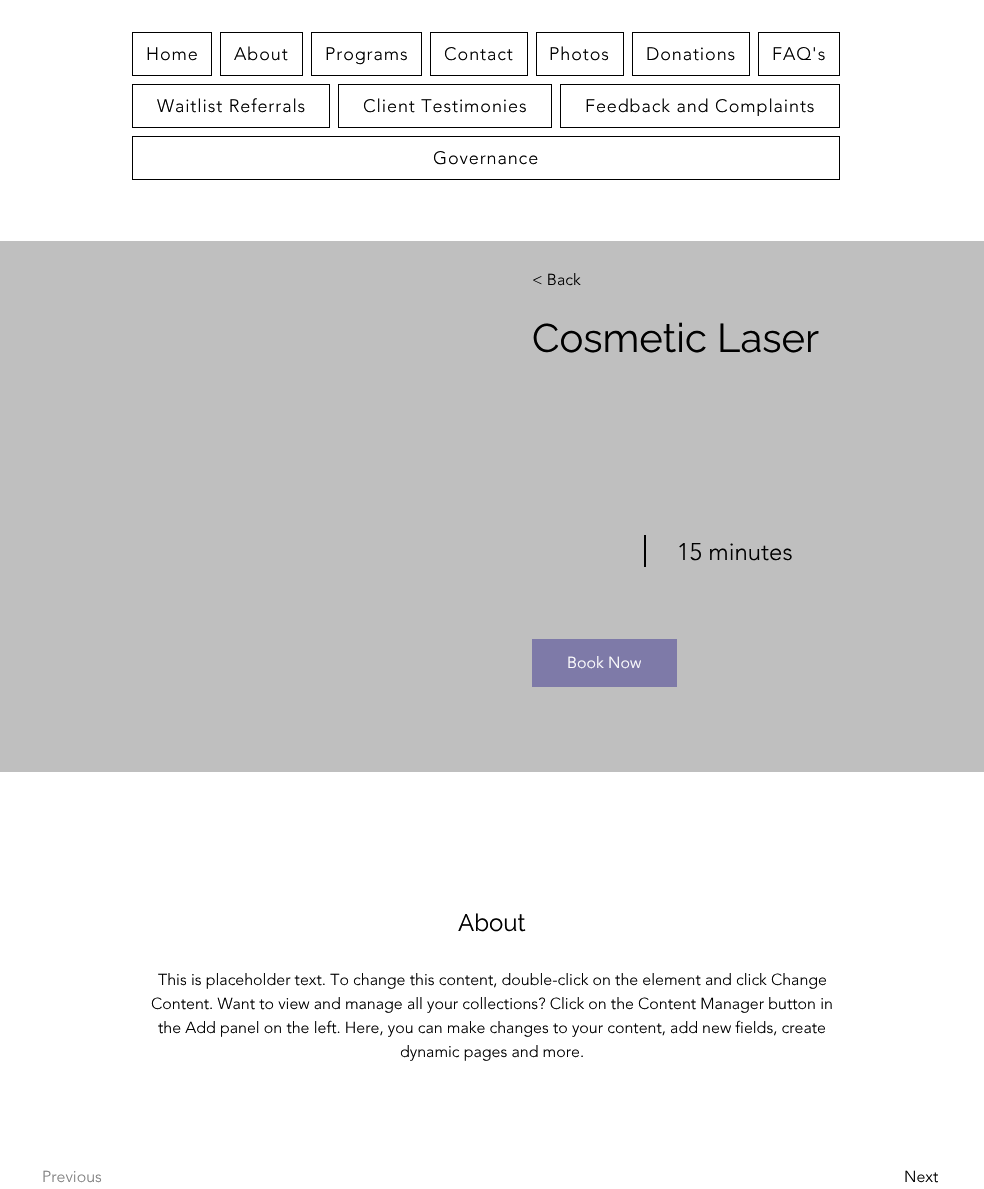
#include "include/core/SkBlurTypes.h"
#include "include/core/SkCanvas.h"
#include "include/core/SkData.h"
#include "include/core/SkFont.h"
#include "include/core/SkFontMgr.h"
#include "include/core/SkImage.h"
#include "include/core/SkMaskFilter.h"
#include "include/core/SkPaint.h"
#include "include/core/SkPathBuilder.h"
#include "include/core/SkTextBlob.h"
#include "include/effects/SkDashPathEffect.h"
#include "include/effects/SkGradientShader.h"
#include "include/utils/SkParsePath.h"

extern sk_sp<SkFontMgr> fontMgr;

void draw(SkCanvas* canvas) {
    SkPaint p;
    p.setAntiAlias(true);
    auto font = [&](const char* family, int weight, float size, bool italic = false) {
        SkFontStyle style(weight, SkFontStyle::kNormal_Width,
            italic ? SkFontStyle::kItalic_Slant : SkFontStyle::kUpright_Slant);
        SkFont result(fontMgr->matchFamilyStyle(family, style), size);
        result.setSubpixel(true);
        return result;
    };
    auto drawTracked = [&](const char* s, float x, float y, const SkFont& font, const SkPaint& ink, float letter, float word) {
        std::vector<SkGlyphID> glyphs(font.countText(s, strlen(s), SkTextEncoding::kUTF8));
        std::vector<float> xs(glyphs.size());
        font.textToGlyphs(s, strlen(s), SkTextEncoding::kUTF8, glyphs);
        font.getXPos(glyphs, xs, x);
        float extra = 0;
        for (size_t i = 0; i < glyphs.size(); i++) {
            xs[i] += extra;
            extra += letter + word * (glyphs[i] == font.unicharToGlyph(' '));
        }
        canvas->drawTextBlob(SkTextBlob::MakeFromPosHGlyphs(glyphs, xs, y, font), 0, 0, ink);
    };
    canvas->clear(0xFFFFFFFF);
    p.setStyle(SkPaint::kStroke_Style);
    p.setStrokeWidth(1);
    p.setColor(0xFF000000);
    canvas->drawRect(SkRect::MakeLTRB(132.5f, 32.5f, 211.5f, 75.5f), p);
    auto font1 = font("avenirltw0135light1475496", 300, 18);
    p.setStyle(SkPaint::kFill_Style);
    drawTracked("Home", 146, 60, font1, p, 0.9f, 0);
    p.setStyle(SkPaint::kStroke_Style);
    canvas->drawRect(SkRect::MakeLTRB(220.5f, 32.5f, 302.5f, 75.5f), p);
    p.setStyle(SkPaint::kFill_Style);
    drawTracked("About", 234, 60, font1, p, 0.9f, 0);
    p.setStyle(SkPaint::kStroke_Style);
    canvas->drawRect(SkRect::MakeLTRB(311.5f, 32.5f, 421.5f, 75.5f), p);
    p.setStyle(SkPaint::kFill_Style);
    drawTracked("Programs", 325, 60, font1, p, 0.9f, 0);
    p.setStyle(SkPaint::kStroke_Style);
    canvas->drawRect(SkRect::MakeLTRB(430.5f, 32.5f, 527.5f, 75.5f), p);
    p.setStyle(SkPaint::kFill_Style);
    drawTracked("Contact", 444, 60, font1, p, 0.9f, 0);
    p.setStyle(SkPaint::kStroke_Style);
    canvas->drawRect(SkRect::MakeLTRB(536.5f, 32.5f, 623.5f, 75.5f), p);
    p.setStyle(SkPaint::kFill_Style);
    drawTracked("Photos", 549, 60, font1, p, 0.9f, 0);
    p.setStyle(SkPaint::kStroke_Style);
    canvas->drawRect(SkRect::MakeLTRB(632.5f, 32.5f, 749.5f, 75.5f), p);
    p.setStyle(SkPaint::kFill_Style);
    drawTracked("Donations", 646, 60, font1, p, 0.9f, 0);
    p.setStyle(SkPaint::kStroke_Style);
    canvas->drawRect(SkRect::MakeLTRB(758.5f, 32.5f, 839.5f, 75.5f), p);
    p.setStyle(SkPaint::kFill_Style);
    drawTracked("FAQ's", 772, 60, font1, p, 0.9f, 0);
    p.setStyle(SkPaint::kStroke_Style);
    canvas->drawRect(SkRect::MakeLTRB(132.5f, 84.5f, 329.5f, 127.5f), p);
    p.setStyle(SkPaint::kFill_Style);
    drawTracked("Waitlist Referrals", 157, 112, font1, p, 0.9f, 0);
    p.setStyle(SkPaint::kStroke_Style);
    canvas->drawRect(SkRect::MakeLTRB(338.5f, 84.5f, 551.5f, 127.5f), p);
    p.setStyle(SkPaint::kFill_Style);
    drawTracked("Client Testimonies", 363, 112, font1, p, 0.9f, 0);
    p.setStyle(SkPaint::kStroke_Style);
    canvas->drawRect(SkRect::MakeLTRB(560.5f, 84.5f, 839.5f, 127.5f), p);
    p.setStyle(SkPaint::kFill_Style);
    drawTracked("Feedback and Complaints", 585, 112, font1, p, 0.9f, 0);
    p.setStyle(SkPaint::kStroke_Style);
    canvas->drawRect(SkRect::MakeLTRB(132.5f, 136.5f, 839.5f, 179.5f), p);
    p.setStyle(SkPaint::kFill_Style);
    drawTracked("Governance", 433, 164, font1, p, 0.9f, 0);
    p.setColor(0xFFBFBFBF);
    canvas->drawRect(SkRect::MakeLTRB(0, 241, 984, 772), p);
    auto font2 = font("avenirltw0135light1475496", 300, 16);
    p.setColor(0xFF000000);
    canvas->drawString("< Back", 532, 285, font2, p);
    auto font3 = font("Raleway", 400, 40);
    canvas->drawString("Cosmetic Laser", 532, 352, font3, p);
    canvas->drawRect(SkRect::MakeLTRB(644, 535, 646, 567), p);
    auto font4 = font("avenirltw0135light1475496", 300, 24);
    canvas->drawString("15 minutes", 677, 560, font4, p);
    p.setColor(0xFF7E7AA8);
    canvas->drawRect(SkRect::MakeLTRB(532, 639, 677, 687), p);
    p.setColor(0xFFFFFFFF);
    canvas->drawString("Book Now", 567, 668, font2, p);
    auto font5 = font("Raleway", 400, 24);
    p.setColor(0xFF000000);
    canvas->drawString("About", 458, 931, font5, p);
    {
        const struct { const char* s; float x, y; } items[] = {
            {"This is placeholder text. To change this content, double-click on the element and click Change", 158, 985},
            {"Content. Want to view and manage all your collections? Click on the Content Manager button in", 151, 1009},
            {"the Add panel on the left. Here, you can make changes to your content, add new fields, create", 158, 1033},
            {"dynamic pages and more.", 400, 1057},
        };
        for (auto [s, x, y] : items) {
            canvas->drawString(s, x, y, font2, p);
        }
    }
    p.setColor(0xFF808080);
    canvas->drawString("Previous", 42, 1182, font2, p);
    p.setColor(0xFF000000);
    canvas->drawString("Next", 904, 1182, font2, p);
}
